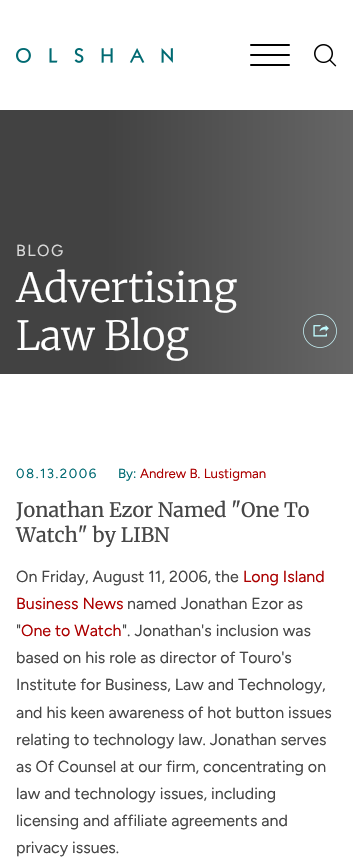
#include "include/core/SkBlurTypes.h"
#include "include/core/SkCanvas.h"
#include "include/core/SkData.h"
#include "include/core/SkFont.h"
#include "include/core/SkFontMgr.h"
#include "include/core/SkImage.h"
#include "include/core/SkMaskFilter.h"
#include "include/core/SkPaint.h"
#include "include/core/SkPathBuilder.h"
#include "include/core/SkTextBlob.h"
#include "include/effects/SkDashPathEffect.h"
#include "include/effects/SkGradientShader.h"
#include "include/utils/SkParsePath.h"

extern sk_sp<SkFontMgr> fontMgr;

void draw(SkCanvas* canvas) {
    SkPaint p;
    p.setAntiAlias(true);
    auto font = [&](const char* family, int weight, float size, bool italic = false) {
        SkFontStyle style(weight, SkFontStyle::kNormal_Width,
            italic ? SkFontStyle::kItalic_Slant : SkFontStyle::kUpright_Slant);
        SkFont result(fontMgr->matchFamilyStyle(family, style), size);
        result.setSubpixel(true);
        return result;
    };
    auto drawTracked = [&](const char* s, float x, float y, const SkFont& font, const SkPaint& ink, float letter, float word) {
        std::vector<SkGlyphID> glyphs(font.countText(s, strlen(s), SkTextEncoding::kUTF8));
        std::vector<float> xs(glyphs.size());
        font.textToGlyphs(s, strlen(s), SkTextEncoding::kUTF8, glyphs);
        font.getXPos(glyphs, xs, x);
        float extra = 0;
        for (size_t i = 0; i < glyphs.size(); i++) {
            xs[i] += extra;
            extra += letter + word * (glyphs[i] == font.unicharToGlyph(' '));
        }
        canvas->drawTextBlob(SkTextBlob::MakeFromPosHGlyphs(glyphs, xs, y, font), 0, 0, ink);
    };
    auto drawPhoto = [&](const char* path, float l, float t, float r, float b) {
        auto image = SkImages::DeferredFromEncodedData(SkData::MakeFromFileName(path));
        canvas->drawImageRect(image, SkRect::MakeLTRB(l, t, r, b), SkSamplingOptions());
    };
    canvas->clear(0xFFFFFFFF);
    drawPhoto("media/1.png", 16, 48, 173, 63);
    p.setColor(0xFF000000);
    canvas->drawRoundRect(SkRect::MakeLTRB(250, 44, 290, 46), 1, 1, p);
    canvas->drawRoundRect(SkRect::MakeLTRB(250, 54, 290, 56), 1, 1, p);
    canvas->drawRoundRect(SkRect::MakeLTRB(250, 64, 290, 66), 1, 1, p);
    drawPhoto("media/2.png", 314, 44, 337, 67);
    {
        const SkColor colors[] = {0xFF424242, 0xFF666666};
        const float stops[] = {0.3f, 1};
        const SkPoint ends[] = {{0, 242}, {353, 242}};
        p.setShader(SkGradientShader::MakeLinear(ends, colors, stops, 2, SkTileMode::kClamp));
        p.setAlpha(255);
    }
    canvas->drawRect(SkRect::MakeLTRB(0, 110, 353, 374), p);
    auto font1 = font("Figtree", 400, 16);
    p.setShader(nullptr);
    p.setColor(0xFFD9D9D9);
    drawTracked("BLOG", 16, 256, font1, p, 1.5f, 0);
    auto font2 = font("Merriweather", 300, 40);
    p.setColor(0xFFFFFFFF);
    canvas->drawString("Advertising", 16, 302, font2, p);
    canvas->drawString("Law Blog", 16, 350, font2, p);
    drawPhoto("media/3.png", 303, 314, 337, 348);
    auto font3 = font("Figtree", 400, 13.25f);
    p.setColor(0xFF006A72);
    drawTracked("08.13.2006", 16, 478, font3, p, 1.5f, 0);
    canvas->drawString("By:", 118, 478, font3, p);
    p.setColor(0xFFAC0000);
    canvas->drawString("Andrew B. Lustigman", 140, 478, font3, p);
    auto font4 = font("Merriweather", 400, 20);
    p.setColor(0xFF464646);
    canvas->drawString("Jonathan Ezor Named \"One To", 16, 517, font4, p);
    canvas->drawString("Watch\" by LIBN", 16, 542, font4, p);
    canvas->drawString("On Friday, August 11, 2006, the", 16, 582, font1, p);
    p.setColor(0xFFAC0000);
    canvas->drawString("Long Island", 243, 582, font1, p);
    canvas->drawString("Business News", 16, 609, font1, p);
    p.setColor(0xFF464646);
    canvas->drawString("named Jonathan Ezor as", 127, 609, font1, p);
    canvas->drawString("\"", 16, 636, font1, p);
    p.setColor(0xFFAC0000);
    canvas->drawString("One to Watch", 21, 636, font1, p);
    p.setColor(0xFF464646);
    {
        const struct { const char* s; float x, y; } items[] = {
            {"\". Jonathan's inclusion was", 122, 636},
            {"based on his role as director of Touro's", 16, 663},
            {"Institute for Business, Law and Technology,", 16, 690},
            {"and his keen awareness of hot button issues", 16, 718},
            {"relating to technology law. Jonathan serves", 16, 745},
            {"as Of Counsel at our firm, concentrating on", 16, 772},
            {"law and technology issues, including", 16, 799},
            {"licensing and affiliate agreements and", 16, 826},
            {"privacy issues.", 16, 853},
        };
        for (auto [s, x, y] : items) {
            canvas->drawString(s, x, y, font1, p);
        }
    }
}
